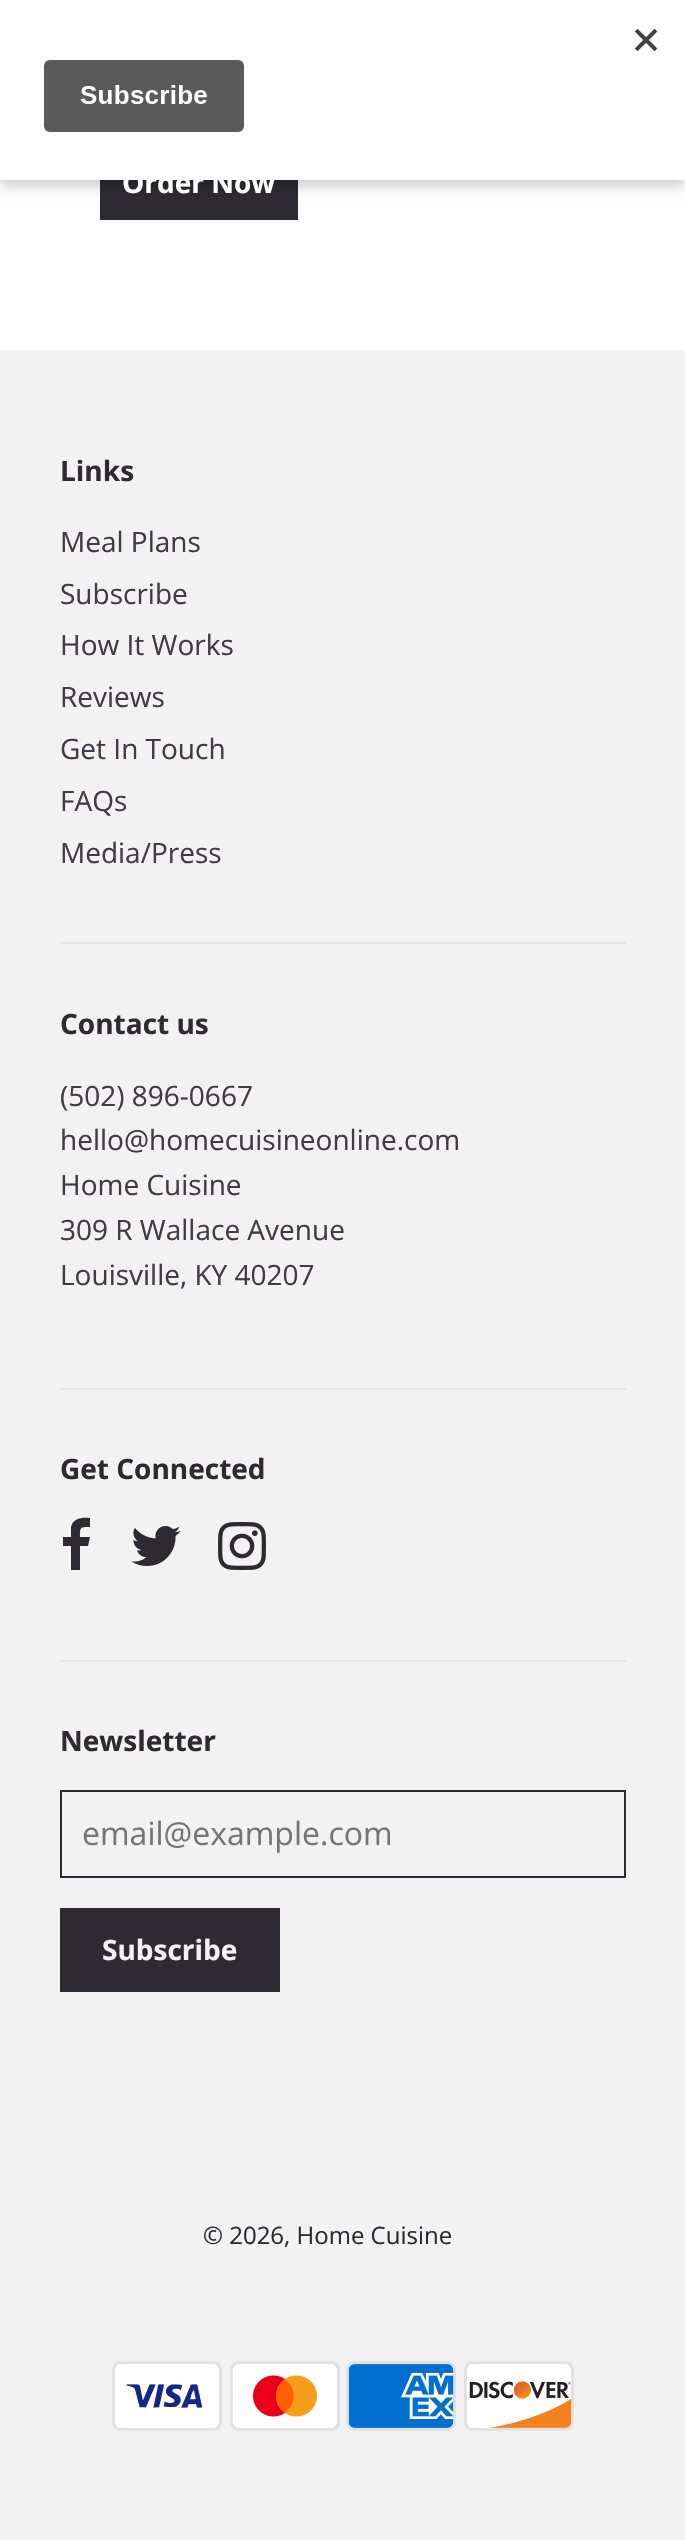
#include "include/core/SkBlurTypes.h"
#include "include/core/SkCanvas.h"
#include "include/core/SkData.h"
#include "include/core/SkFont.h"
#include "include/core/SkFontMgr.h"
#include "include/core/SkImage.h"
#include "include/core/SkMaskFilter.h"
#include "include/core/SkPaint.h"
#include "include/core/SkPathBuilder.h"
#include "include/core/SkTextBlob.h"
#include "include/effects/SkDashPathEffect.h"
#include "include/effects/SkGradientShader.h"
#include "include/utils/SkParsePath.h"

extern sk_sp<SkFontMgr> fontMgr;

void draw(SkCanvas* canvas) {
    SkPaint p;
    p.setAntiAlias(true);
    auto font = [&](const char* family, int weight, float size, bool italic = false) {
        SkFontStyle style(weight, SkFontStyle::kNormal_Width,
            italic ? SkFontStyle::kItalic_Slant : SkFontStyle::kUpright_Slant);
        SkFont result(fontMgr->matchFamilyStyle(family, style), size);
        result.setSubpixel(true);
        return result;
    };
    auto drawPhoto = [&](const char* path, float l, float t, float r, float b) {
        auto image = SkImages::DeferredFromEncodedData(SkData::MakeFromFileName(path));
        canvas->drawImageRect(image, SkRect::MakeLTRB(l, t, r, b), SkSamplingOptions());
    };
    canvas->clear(0xFFFFFFFF);
    p.setColor(0xFF2D2A32);
    canvas->drawRect(SkRect::MakeLTRB(100, 180, 298, 220), p);
    p.setColor(0x33000000);
    p.setMaskFilter(SkMaskFilter::MakeBlur(kNormal_SkBlurStyle, 6));
    canvas->drawRect(SkRect::MakeLTRB(0, 6, 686, 186), p);
    p.setMaskFilter(nullptr);
    p.setColor(0xFFFFFFFF);
    canvas->drawRect(SkRect::MakeLTRB(0, 0, 685, 180), p);
    drawPhoto("media/1.png", 44, 28, 658, 132);
    auto font1 = font("Open Sans", 700, 28);
    canvas->drawString("Order Now", 122, 193, font1, p);
    p.setColor(0xFFF2F2F2);
    canvas->drawRect(SkRect::MakeLTRB(0, 350, 685, 2540), p);
    p.setColor(0xFF2D2A32);
    canvas->drawString("Links", 60, 481, font1, p);
    auto font2 = font("Open Sans", 400, 28);
    p.setColor(0xFF403B47);
    {
        const struct { const char* s; float x, y; } items[] = {
            {"Meal Plans", 60, 552},
            {"Subscribe", 60, 604},
            {"How It Works", 60, 655},
            {"Reviews", 60, 707},
            {"Get In Touch", 60, 759},
            {"FAQs", 60, 811},
            {"Media/Press", 60, 863},
        };
        for (auto [s, x, y] : items) {
            canvas->drawString(s, x, y, font2, p);
        }
    }
    p.setColor(0xFFE6E6E6);
    canvas->drawRect(SkRect::MakeLTRB(60, 942, 626, 944), p);
    p.setColor(0xFF2D2A32);
    canvas->drawString("Contact us", 60, 1034, font1, p);
    p.setColor(0xFF403B47);
    {
        const struct { const char* s; float x, y; } items[] = {
            {"(502) 896-0667", 60, 1106},
            {"hello@homecuisineonline.com", 60, 1150},
            {"Home Cuisine", 60, 1195},
            {"309 R Wallace Avenue", 60, 1240},
            {"Louisville, KY 40207", 60, 1285},
        };
        for (auto [s, x, y] : items) {
            canvas->drawString(s, x, y, font2, p);
        }
    }
    p.setColor(0xFFE6E6E6);
    canvas->drawRect(SkRect::MakeLTRB(60, 1388, 626, 1390), p);
    p.setColor(0xFF2D2A32);
    canvas->drawString("Get Connected", 60, 1479, font1, p);
    canvas->drawPath(SkPathBuilder().moveTo(90, 1518).lineTo(90, 1527).cubicTo(80, 1527, 80, 1527, 80, 1537).lineTo(90, 1537).lineTo(88, 1546).lineTo(80, 1546).lineTo(80, 1570).lineTo(71, 1570).lineTo(71, 1546).lineTo(63, 1546).lineTo(63, 1537).lineTo(71, 1537).lineTo(71, 1527).cubicTo(73, 1518, 82, 1517, 90, 1518).close().detach(), p);
    drawPhoto("media/2.png", 131, 1526, 181, 1566);
    drawPhoto("media/3.png", 218, 1522, 266, 1570);
    p.setColor(0xFFE6E6E6);
    canvas->drawRect(SkRect::MakeLTRB(60, 1660, 626, 1662), p);
    p.setColor(0xFF2D2A32);
    canvas->drawString("Newsletter", 60, 1751, font1, p);
    p.setStyle(SkPaint::kStroke_Style);
    p.setStrokeWidth(2);
    canvas->drawRect(SkRect::MakeLTRB(61, 1791, 625, 1877), p);
    auto font3 = font("Open Sans", 400, 32);
    p.setStyle(SkPaint::kFill_Style);
    p.setColor(0xFF757575);
    canvas->drawString("email@example.com", 82, 1845, font3, p);
    p.setColor(0xFF2D2A32);
    canvas->drawRect(SkRect::MakeLTRB(60, 1908, 280, 1992), p);
    p.setColor(0xFFF2F2F2);
    canvas->drawString("Subscribe", 102, 1960, font1, p);
    auto font4 = font("Open Sans", 400, 24);
    p.setColor(0xFF2D2A32);
    canvas->drawString("© 2026, Home Cuisine", 203, 2244, font4, p);
    drawPhoto("media/4.png", 112, 2361, 222, 2431);
    drawPhoto("media/5.png", 230, 2361, 340, 2431);
    drawPhoto("media/6.png", 346, 2361, 456, 2431);
    drawPhoto("media/7.png", 464, 2361, 574, 2431);
}
